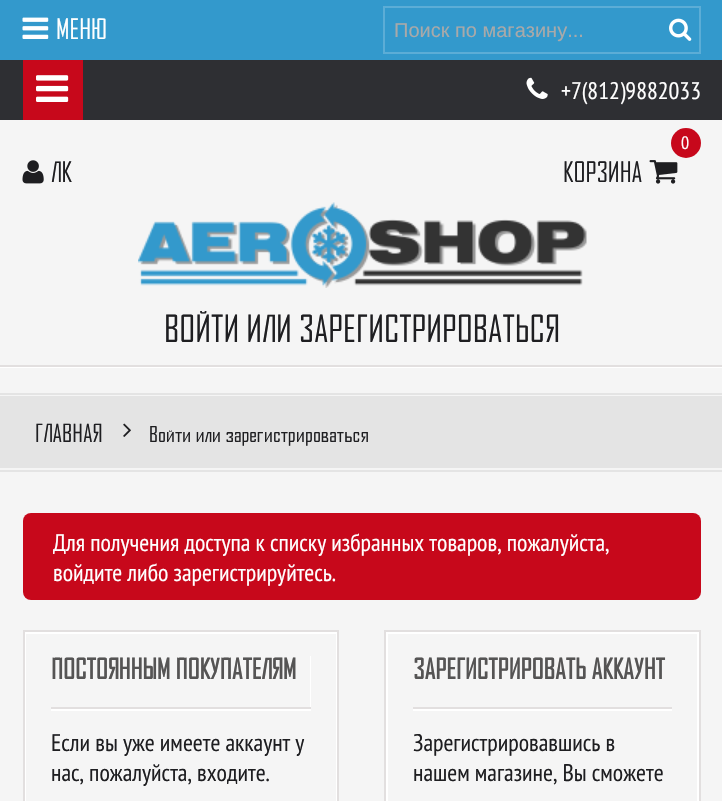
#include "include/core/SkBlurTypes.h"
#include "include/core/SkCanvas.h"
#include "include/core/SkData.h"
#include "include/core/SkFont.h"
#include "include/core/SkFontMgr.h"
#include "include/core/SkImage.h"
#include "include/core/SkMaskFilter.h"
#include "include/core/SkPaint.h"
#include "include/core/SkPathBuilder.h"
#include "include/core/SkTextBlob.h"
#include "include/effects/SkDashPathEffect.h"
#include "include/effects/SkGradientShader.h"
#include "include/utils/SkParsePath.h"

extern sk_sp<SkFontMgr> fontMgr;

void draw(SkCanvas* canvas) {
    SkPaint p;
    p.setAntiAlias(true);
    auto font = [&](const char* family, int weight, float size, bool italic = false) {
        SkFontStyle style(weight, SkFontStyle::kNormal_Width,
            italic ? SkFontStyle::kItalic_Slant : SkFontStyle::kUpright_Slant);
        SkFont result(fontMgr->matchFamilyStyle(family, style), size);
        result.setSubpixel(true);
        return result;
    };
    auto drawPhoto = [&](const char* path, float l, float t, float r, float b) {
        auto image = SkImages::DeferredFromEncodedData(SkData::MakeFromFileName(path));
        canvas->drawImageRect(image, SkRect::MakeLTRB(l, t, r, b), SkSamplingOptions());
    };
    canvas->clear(0xFFF5F5F5);
    p.setColor(0xFF2E2F33);
    canvas->drawRect(SkRect::MakeLTRB(0, 60, 722, 120), p);
    p.setColor(0xFF3399CC);
    canvas->drawRect(SkRect::MakeLTRB(0, 0, 722, 60), p);
    drawPhoto("media/1.png", 22, 17, 49, 39);
    auto font1 = font("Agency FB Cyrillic", 400, 27);
    p.setColor(0xFFFFFFFF);
    canvas->drawString("МЕНЮ", 56, 39, font1, p);
    p.setStyle(SkPaint::kStroke_Style);
    p.setStrokeWidth(2);
    p.setColor(0xFF5CADD6);
    canvas->drawRect(SkRect::MakeLTRB(384, 7, 700, 53), p);
    auto font2 = font("Liberation Sans", 400, 20);
    p.setStyle(SkPaint::kFill_Style);
    p.setColor(0xFFA9A9A9);
    canvas->drawString("Поиск по магазину...", 394, 37, font2, p);
    drawPhoto("media/2.png", 669, 18, 692, 41);
    p.setColor(0xFFC7081B);
    canvas->drawRect(SkRect::MakeLTRB(23, 60, 83, 120), p);
    drawPhoto("media/3.png", 36, 75, 69, 102);
    drawPhoto("media/4.png", 526, 77, 548, 99);
    auto font3 = font("PT Sans Narrow", 400, 24);
    p.setColor(0xFFFFFFFF);
    canvas->drawString("+7(812)9882033", 561, 99, font3, p);
    auto font4 = font("Agency FB Cyrillic", 400, 36);
    p.setColor(0xFF1E1E21);
    canvas->drawString("ВОЙТИ ИЛИ ЗАРЕГИСТРИРОВАТЬСЯ", 164, 342, font4, p);
    p.setColor(0xFFF5F5F5);
    canvas->drawRect(SkRect::MakeLTRB(200, 310, 207, 311), p);
    drawPhoto("media/5.png", 22, 160, 44, 184);
    p.setColor(0xFF1E1E21);
    canvas->drawString("ЛК", 51, 182, font1, p);
    p.setColor(0xFFC7081B);
    canvas->drawCircle(686, 143, 15, p);
    auto font5 = font("PT Sans Narrow", 400, 18);
    p.setColor(0xFFFFFFFF);
    canvas->drawString("0", 681, 149, font5, p);
    p.setColor(0xFF1E1E21);
    canvas->drawString("КОРЗИНА", 563, 182, font1, p);
    drawPhoto("media/6.png", 649, 160, 678, 184);
    drawPhoto("media/7.png", 138, 202, 587, 288);
    {
        const struct { float l, t, r, b; SkColor color; } items[] = {
            {0, 367, 722, 368, 0xFFFFFFFF},
            {0, 365, 722, 367, 0xFFE2DFDF},
            {0, 396, 722, 468, 0xFFE4E4E4},
            {0, 393, 722, 395, 0xFFE4E4E4},
        };
        for (auto [l, t, r, b, color] : items) {
            p.setColor(color);
            canvas->drawRect(SkRect::MakeLTRB(l, t, r, b), p);
        }
    }
    auto font6 = font("Agency FB Cyrillic", 400, 24);
    p.setColor(0xFF1E1E21);
    canvas->drawString("ГЛАВНАЯ", 35, 442, font6, p);
    drawPhoto("media/8.png", 123, 423, 131, 437);
    auto font7 = font("Agency FB Cyrillic", 400, 21);
    canvas->drawString("Войти или зарегистрироваться", 149, 442, font7, p);
    p.setColor(0xFFE4E4E4);
    canvas->drawRect(SkRect::MakeLTRB(0, 470, 722, 472), p);
    p.setColor(0xFFC7081B);
    canvas->drawRoundRect(SkRect::MakeLTRB(23, 513, 701, 600), 8, 8, p);
    p.setColor(0xFFFFFFFF);
    canvas->drawString("Для получения доступа к списку избранных товаров, пожалуйста,", 53, 551, font3, p);
    canvas->drawString("войдите либо зарегистрируйтесь.", 53, 581, font3, p);
    p.setStyle(SkPaint::kStroke_Style);
    canvas->drawRect(SkRect::MakeLTRB(25, 633, 337, 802), p);
    p.setColor(0xFFE2DFDF);
    canvas->drawRect(SkRect::MakeLTRB(24, 631, 338, 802), p);
    p.setStyle(SkPaint::kFill_Style);
    p.setColor(0xFFFFFFFF);
    canvas->drawPath(SkPathBuilder().moveTo(51, 708).lineTo(51, 711).lineTo(311, 711).lineTo(311, 656).lineTo(310, 656).lineTo(310, 708).close().detach(), p);
    p.setColor(0xFFE2DFDF);
    canvas->drawRect(SkRect::MakeLTRB(51, 707, 311, 709), p);
    auto font8 = font("Agency FB Cyrillic", 700, 27);
    p.setColor(0xFF555454);
    canvas->drawString("ПОСТОЯННЫМ ПОКУПАТЕЛЯМ", 51, 679, font8, p);
    p.setColor(0xFF1E1E21);
    canvas->drawString("Если вы уже имеете аккаунт у", 51, 751, font3, p);
    canvas->drawString("нас, пожалуйста, входите.", 51, 781, font3, p);
    p.setStyle(SkPaint::kStroke_Style);
    p.setColor(0xFFFFFFFF);
    canvas->drawRect(SkRect::MakeLTRB(387, 633, 698, 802), p);
    p.setColor(0xFFE2DFDF);
    canvas->drawRect(SkRect::MakeLTRB(385, 631, 700, 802), p);
    p.setStyle(SkPaint::kFill_Style);
    p.setColor(0xFFFFFFFF);
    canvas->drawRect(SkRect::MakeLTRB(413, 709, 672, 711), p);
    p.setColor(0xFFE2DFDF);
    canvas->drawRect(SkRect::MakeLTRB(413, 707, 672, 709), p);
    p.setColor(0xFF555454);
    canvas->drawString("ЗАРЕГИСТРИРОВАТЬ АККАУНТ", 413, 679, font8, p);
    p.setColor(0xFF1E1E21);
    canvas->drawString("Зарегистрировавшись в", 413, 751, font3, p);
    canvas->drawString("нашем магазине, Вы сможете", 413, 781, font3, p);
}
